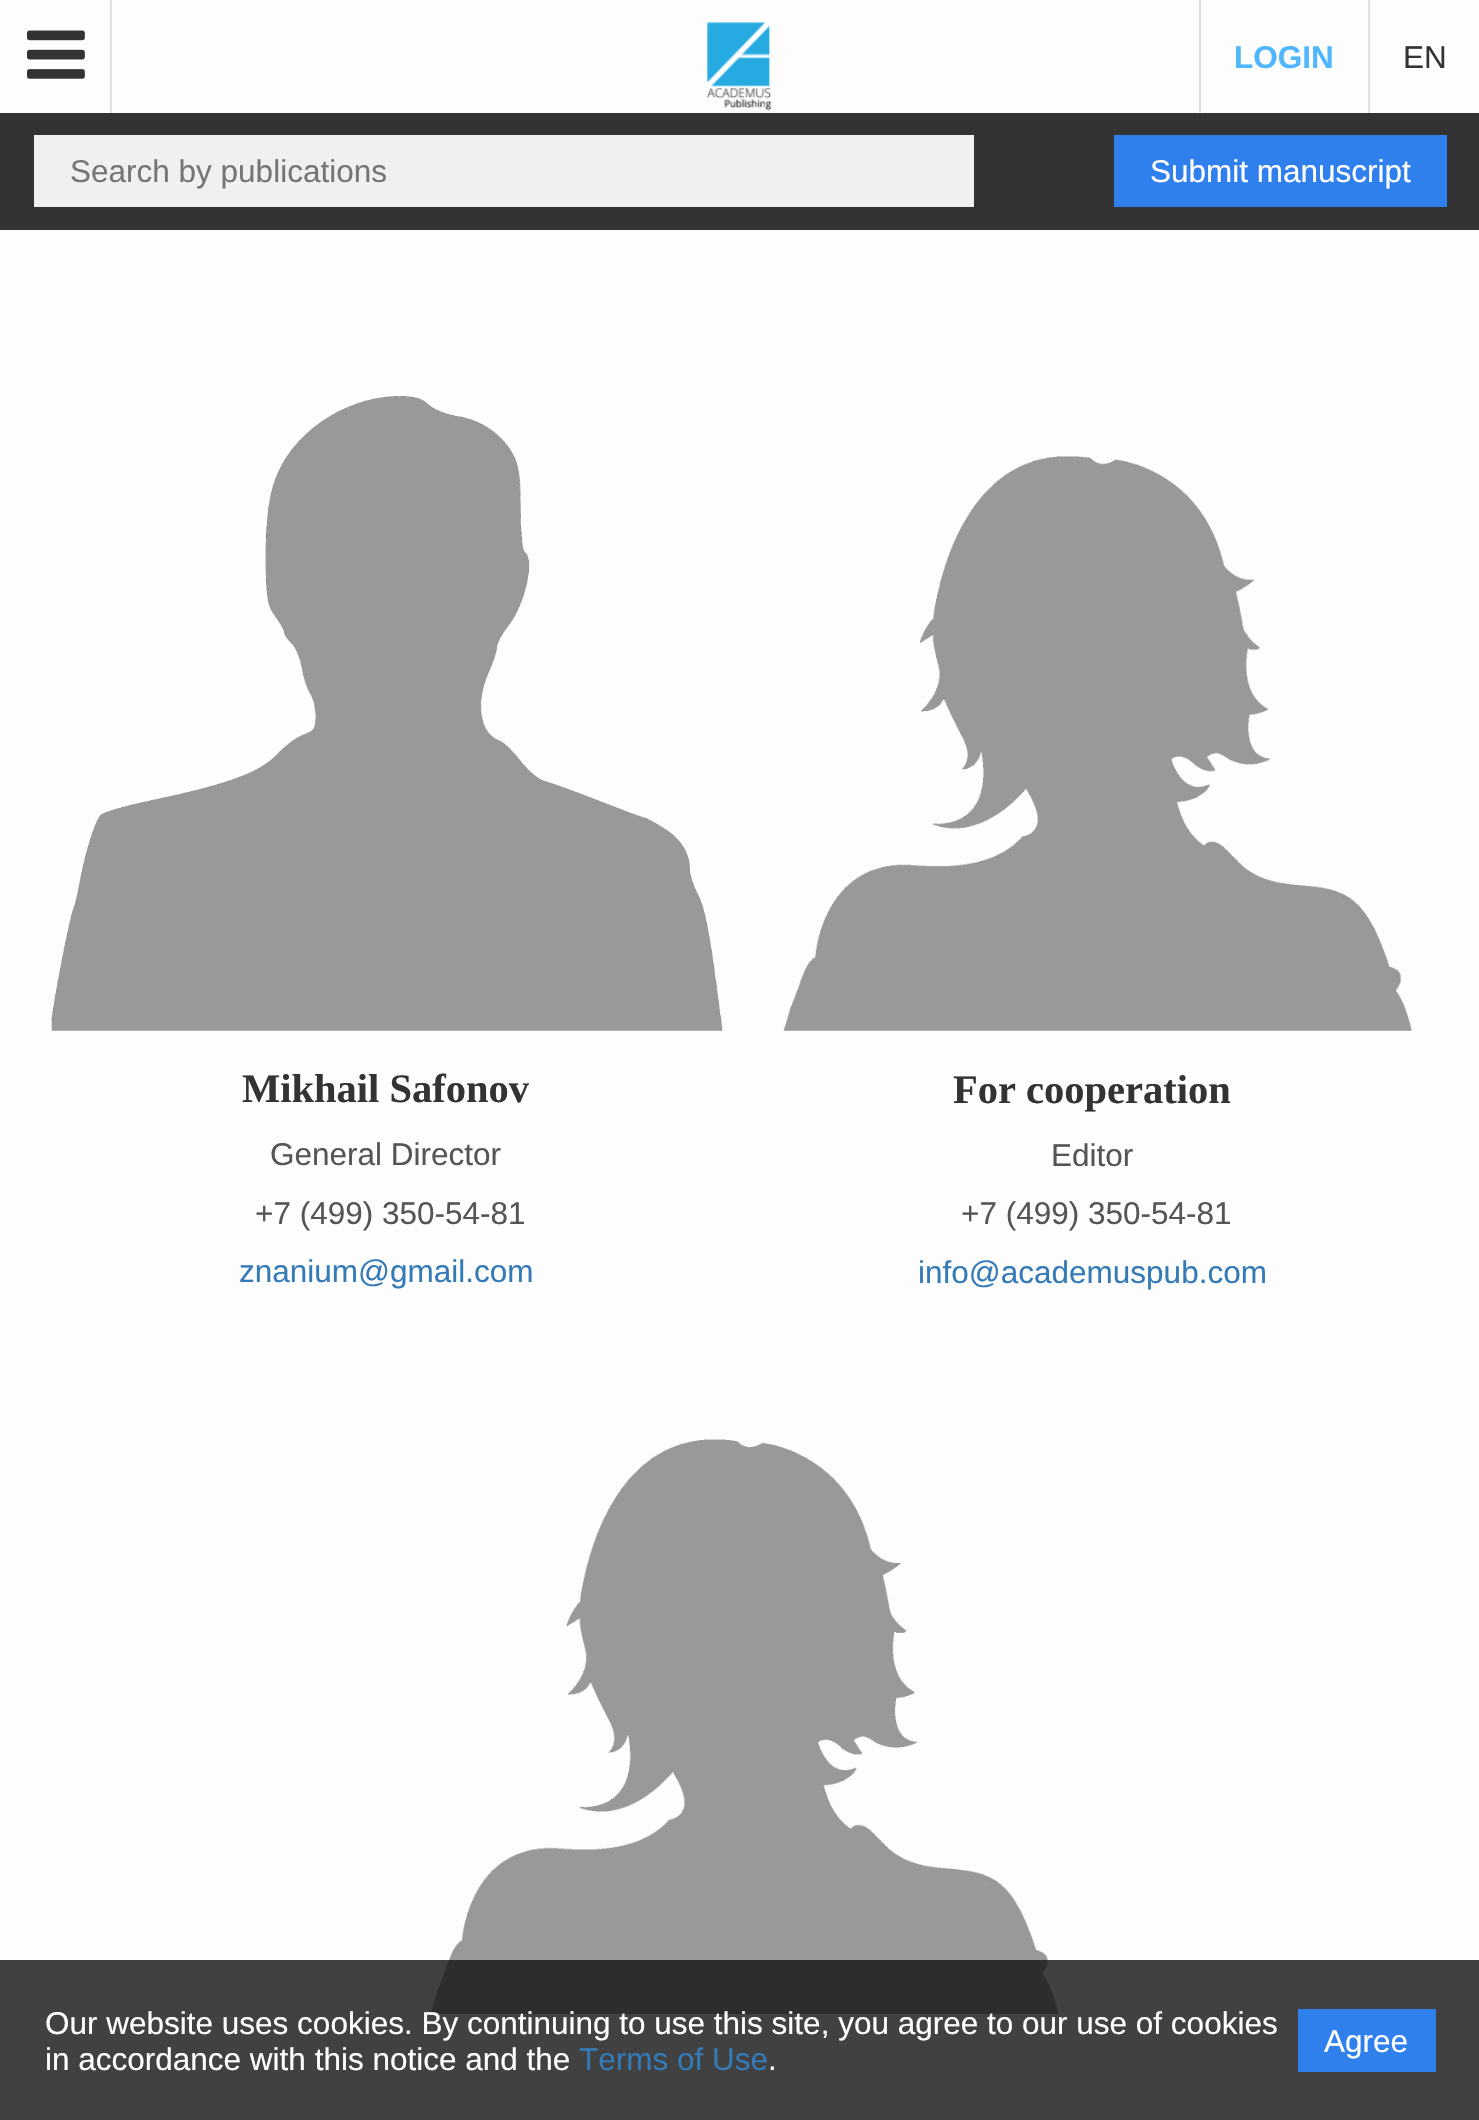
#include "include/core/SkBlurTypes.h"
#include "include/core/SkCanvas.h"
#include "include/core/SkData.h"
#include "include/core/SkFont.h"
#include "include/core/SkFontMgr.h"
#include "include/core/SkImage.h"
#include "include/core/SkMaskFilter.h"
#include "include/core/SkPaint.h"
#include "include/core/SkPathBuilder.h"
#include "include/core/SkTextBlob.h"
#include "include/effects/SkDashPathEffect.h"
#include "include/effects/SkGradientShader.h"
#include "include/utils/SkParsePath.h"

extern sk_sp<SkFontMgr> fontMgr;

void draw(SkCanvas* canvas) {
    SkPaint p;
    p.setAntiAlias(true);
    auto font = [&](const char* family, int weight, float size, bool italic = false) {
        SkFontStyle style(weight, SkFontStyle::kNormal_Width,
            italic ? SkFontStyle::kItalic_Slant : SkFontStyle::kUpright_Slant);
        SkFont result(fontMgr->matchFamilyStyle(family, style), size);
        result.setSubpixel(true);
        return result;
    };
    auto drawPhoto = [&](const char* path, float l, float t, float r, float b) {
        auto image = SkImages::DeferredFromEncodedData(SkData::MakeFromFileName(path));
        canvas->drawImageRect(image, SkRect::MakeLTRB(l, t, r, b), SkSamplingOptions());
    };
    canvas->clear(0xFFFDFDFD);
    p.setColor(0xFFDFDFDF);
    canvas->drawRect(SkRect::MakeLTRB(110, 0, 112, 113), p);
    drawPhoto("media/1.png", 27, 30, 85, 79);
    drawPhoto("media/2.png", 707, 22, 772, 111);
    canvas->drawRect(SkRect::MakeLTRB(1199, 0, 1201, 113), p);
    auto font1 = font("Liberation Sans", 700, 31.5f);
    p.setColor(0xFF50B7FF);
    canvas->drawString("LOGIN", 1234, 68, font1, p);
    p.setColor(0xFFDFDFDF);
    canvas->drawRect(SkRect::MakeLTRB(1368, 0, 1370, 113), p);
    auto font2 = font("Liberation Sans", 400, 31.5f);
    p.setColor(0xFF333333);
    canvas->drawString("EN", 1403, 68, font2, p);
    canvas->drawRect(SkRect::MakeLTRB(0, 113, 1479, 230), p);
    p.setColor(0xFFF0F0F0);
    canvas->drawRect(SkRect::MakeLTRB(34, 135, 974, 207), p);
    p.setColor(0xFF757575);
    canvas->drawString("Search by publications", 70, 182, font2, p);
    p.setColor(0xFF2F80ED);
    canvas->drawRect(SkRect::MakeLTRB(1114, 135, 1447, 207), p);
    p.setColor(0xFFFFFFFF);
    canvas->drawString("Submit manuscript", 1150, 182, font2, p);
    drawPhoto("media/3.png", 51, 396, 723, 1031);
    auto font3 = font("Liberation Serif", 700, 40.5f);
    p.setColor(0xFF333333);
    canvas->drawString("Mikhail Safonov", 242, 1102, font3, p);
    p.setColor(0xFF555555);
    canvas->drawString("General Director", 270, 1165, font2, p);
    canvas->drawString("+7 (499) 350-54-81", 255, 1224, font2, p);
    p.setColor(0xFF337AB7);
    canvas->drawString("znanium@gmail.com", 239, 1282, font2, p);
    drawPhoto("media/4.png", 783, 456, 1412, 1031);
    p.setColor(0xFF333333);
    canvas->drawString("For cooperation", 953, 1103, font3, p);
    p.setColor(0xFF555555);
    canvas->drawString("Editor", 1051, 1166, font2, p);
    canvas->drawString("+7 (499) 350-54-81", 961, 1224, font2, p);
    p.setColor(0xFF337AB7);
    canvas->drawString("info@academuspub.com", 918, 1283, font2, p);
    drawPhoto("media/5.png", 430, 1439, 1059, 2014);
    p.setColor(0xCC121212);
    canvas->drawRect(SkRect::MakeLTRB(0, 1960, 1479, 2120), p);
    p.setColor(0xFFFFFFFF);
    canvas->drawString("Our website uses cookies. By continuing to use this site, you agree to our use of cookies", 45, 2034, font2, p);
    canvas->drawString("in accordance with this notice and the", 45, 2070, font2, p);
    p.setColor(0xFF337AB7);
    canvas->drawString("Terms of Use", 579, 2070, font2, p);
    p.setColor(0xFFFFFFFF);
    canvas->drawString(".", 768, 2070, font2, p);
    p.setColor(0xFF2F80ED);
    canvas->drawRect(SkRect::MakeLTRB(1298, 2009, 1436, 2072), p);
    p.setColor(0xFFFFFFFF);
    canvas->drawString("Agree", 1324, 2052, font2, p);
}
